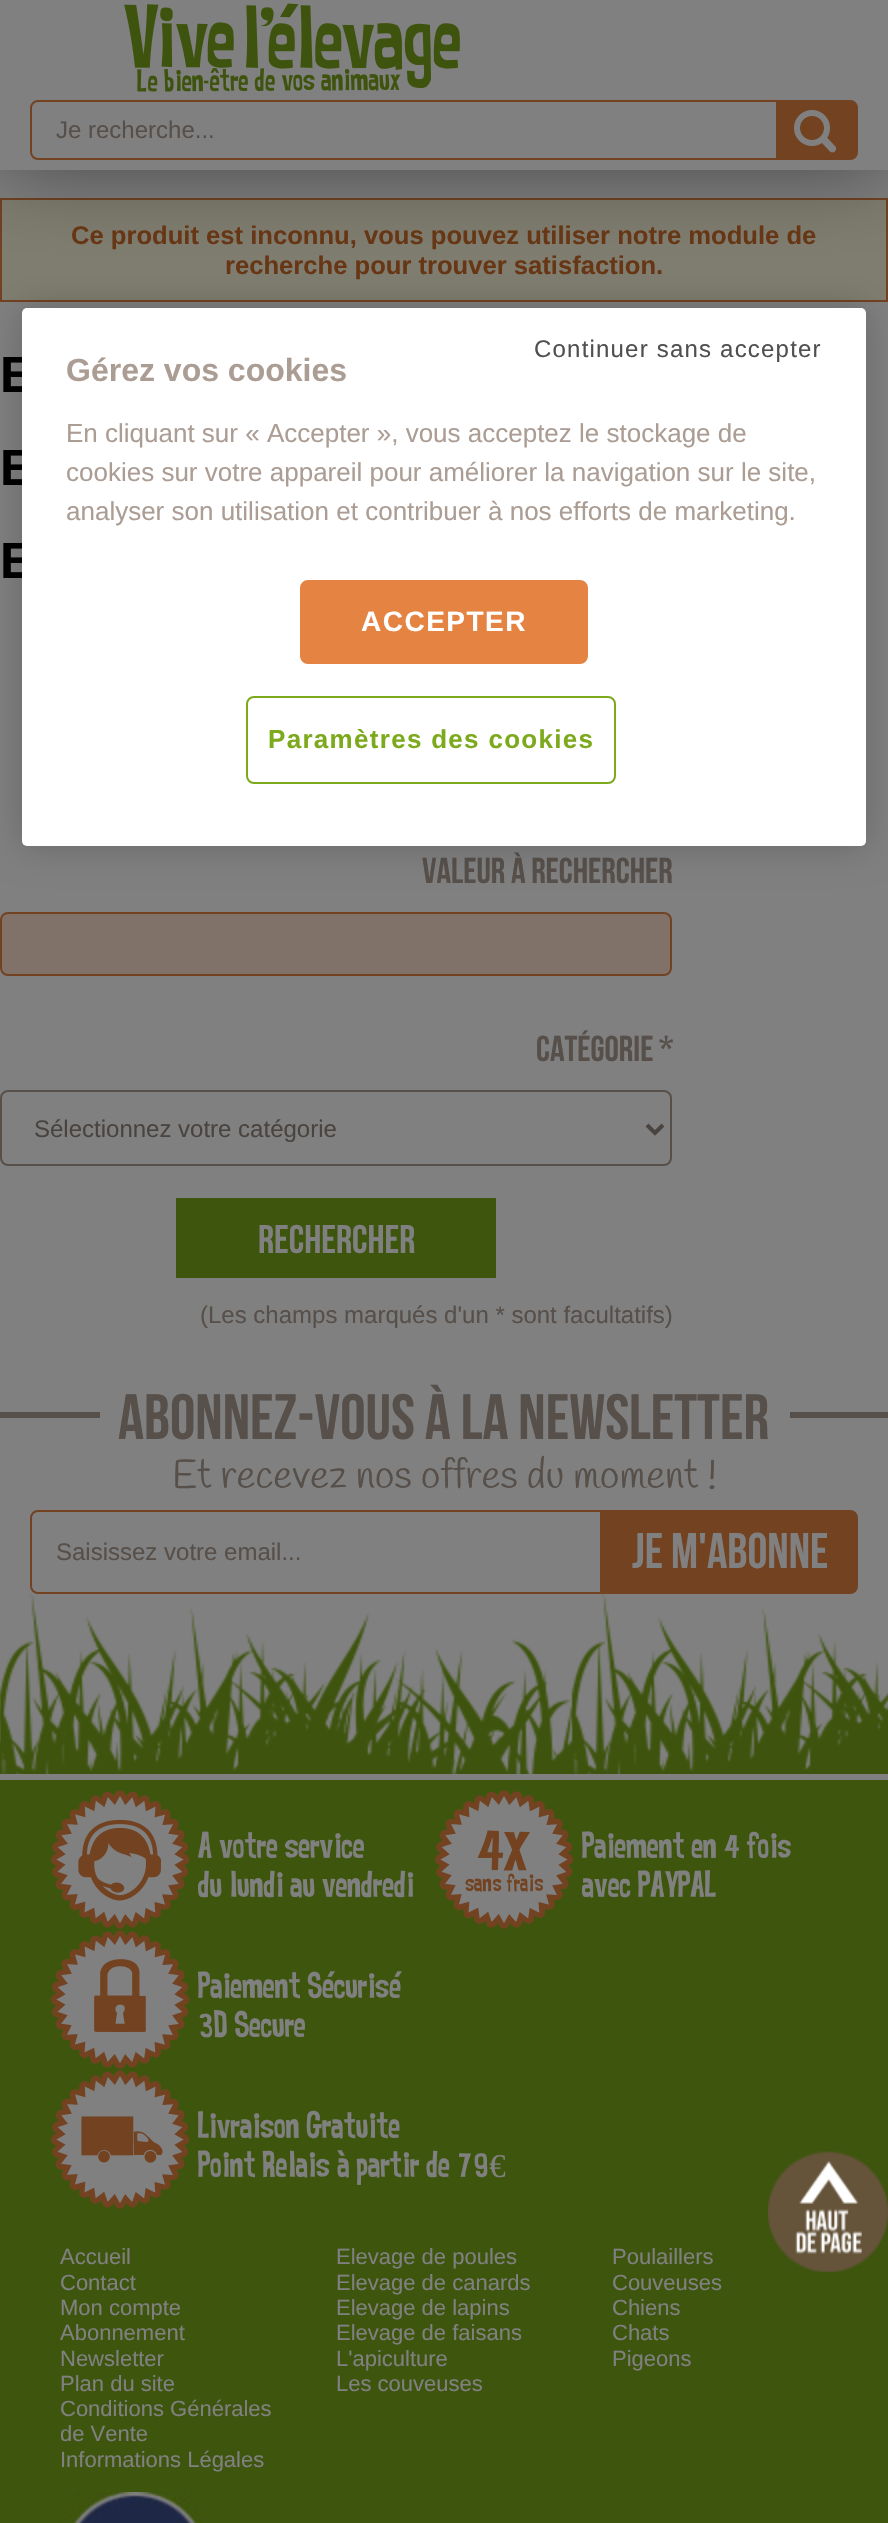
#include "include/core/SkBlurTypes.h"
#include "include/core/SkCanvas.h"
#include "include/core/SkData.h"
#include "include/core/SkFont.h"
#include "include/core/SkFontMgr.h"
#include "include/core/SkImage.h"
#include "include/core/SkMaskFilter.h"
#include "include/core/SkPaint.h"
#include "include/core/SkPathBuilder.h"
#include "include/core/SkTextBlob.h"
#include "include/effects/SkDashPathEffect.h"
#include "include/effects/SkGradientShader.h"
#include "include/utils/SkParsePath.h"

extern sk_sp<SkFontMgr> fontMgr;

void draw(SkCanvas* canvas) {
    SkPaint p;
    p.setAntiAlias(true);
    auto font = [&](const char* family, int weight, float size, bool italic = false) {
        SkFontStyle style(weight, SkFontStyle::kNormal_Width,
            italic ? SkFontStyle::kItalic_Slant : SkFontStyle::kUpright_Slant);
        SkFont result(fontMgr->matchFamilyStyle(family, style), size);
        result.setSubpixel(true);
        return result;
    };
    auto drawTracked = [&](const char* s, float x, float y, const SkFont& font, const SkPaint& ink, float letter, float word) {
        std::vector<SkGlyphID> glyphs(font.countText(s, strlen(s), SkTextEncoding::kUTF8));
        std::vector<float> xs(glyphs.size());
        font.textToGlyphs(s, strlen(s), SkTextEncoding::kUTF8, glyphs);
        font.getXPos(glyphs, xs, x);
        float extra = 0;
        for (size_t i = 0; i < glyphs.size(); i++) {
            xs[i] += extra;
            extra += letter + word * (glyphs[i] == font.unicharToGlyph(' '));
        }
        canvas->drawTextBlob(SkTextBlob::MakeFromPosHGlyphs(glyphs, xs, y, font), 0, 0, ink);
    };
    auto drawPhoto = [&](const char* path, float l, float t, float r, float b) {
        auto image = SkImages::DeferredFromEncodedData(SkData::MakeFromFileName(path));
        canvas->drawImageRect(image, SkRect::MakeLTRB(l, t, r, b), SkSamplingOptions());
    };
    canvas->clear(0xFF808080);
    p.setColor(0xFF7F7D6F);
    canvas->drawRect(SkRect::MakeLTRB(1, 199, 887, 301), p);
    p.setStyle(SkPaint::kStroke_Style);
    p.setStrokeWidth(2);
    p.setColor(0xFF724221);
    canvas->drawRect(SkRect::MakeLTRB(1, 199, 887, 301), p);
    p.setStyle(SkPaint::kFill_Style);
    p.setColor(0x6B000000);
    p.setMaskFilter(SkMaskFilter::MakeBlur(kNormal_SkBlurStyle, 40));
    canvas->drawRect(SkRect::MakeLTRB(0, 2, 888, 172), p);
    p.setMaskFilter(nullptr);
    p.setColor(0xFF808080);
    canvas->drawRect(SkRect::MakeLTRB(0, 0, 888, 170), p);
    drawPhoto("media/1.png", 124, 3, 460, 92);
    p.setStyle(SkPaint::kStroke_Style);
    p.setColor(0xFF724221);
    canvas->drawPath(SkPathBuilder().moveTo(38, 101).lineTo(777, 101).lineTo(777, 159).lineTo(38, 159).cubicTo(34, 159, 31, 156, 31, 152).lineTo(31, 108).cubicTo(31, 104, 34, 101, 38, 101).close().detach(), p);
    auto font1 = font("Liberation Sans", 400, 24);
    p.setStyle(SkPaint::kFill_Style);
    p.setColor(0xFF564F4A);
    canvas->drawString("Je recherche...", 56, 138, font1, p);
    p.setColor(0xFF724221);
    canvas->drawPath(SkPathBuilder().moveTo(778, 100).lineTo(850, 100).cubicTo(854.5f, 100, 858, 103.5f, 858, 108).lineTo(858, 152).cubicTo(858, 156.5f, 854.5f, 160, 850, 160).lineTo(778, 160).close().detach(), p);
    drawPhoto("media/2.png", 794, 110, 837, 153);
    auto font2 = font("Liberation Sans", 700, 51);
    p.setColor(0xFF000000);
    {
        const struct { const char* s; float x, y; } items[] = {
            {"E", 0, 392},
            {"E", 0, 485},
            {"E", 0, 578},
        };
        for (auto [s, x, y] : items) {
            canvas->drawString(s, x, y, font2, p);
        }
    }
    auto font3 = font("Bebas Neue", 400, 36);
    p.setColor(0xFF564F4A);
    canvas->drawString("Valeur à rechercher", 422, 883, font3, p);
    p.setColor(0xFF807269);
    canvas->drawRoundRect(SkRect::MakeLTRB(1, 913, 671, 975), 7, 7, p);
    p.setStyle(SkPaint::kStroke_Style);
    p.setColor(0xFF724221);
    canvas->drawRoundRect(SkRect::MakeLTRB(1, 913, 671, 975), 7, 7, p);
    p.setStyle(SkPaint::kFill_Style);
    p.setColor(0xFF564F4A);
    canvas->drawString("Catégorie *", 536, 1061, font3, p);
    p.setStyle(SkPaint::kStroke_Style);
    canvas->drawRoundRect(SkRect::MakeLTRB(1, 1091, 671, 1165), 7, 7, p);
    p.setStrokeWidth(4);
    p.setColor(0xFF4A4440);
    canvas->drawPath(SkPathBuilder().moveTo(647, 1125).lineTo(655, 1133).lineTo(663, 1125).detach(), p);
    p.setStyle(SkPaint::kFill_Style);
    canvas->drawString("Sélectionnez votre catégorie", 34, 1137, font1, p);
    p.setColor(0xFF3E550E);
    canvas->drawRect(SkRect::MakeLTRB(176, 1198, 496, 1278), p);
    auto font4 = font("Bebas Neue", 400, 40);
    p.setColor(0xFF808080);
    canvas->drawString("Rechercher", 258, 1253, font4, p);
    p.setColor(0xFF564F4A);
    canvas->drawString("(Les champs marqués d'un * sont facultatifs)", 200, 1323, font1, p);
    canvas->drawRect(SkRect::MakeLTRB(0, 1412, 888, 1418), p);
    p.setColor(0xFF808080);
    canvas->drawRect(SkRect::MakeLTRB(100, 1412, 790, 1418), p);
    auto font5 = font("Bebas Neue", 400, 64);
    p.setColor(0xFF564F4A);
    canvas->drawString("Abonnez-vous à la newsletter", 118, 1439, font5, p);
    auto font6 = font("Handlee", 400, 40);
    canvas->drawString("Et recevez nos offres du moment !", 172, 1488, font6, p);
    p.setStyle(SkPaint::kStroke_Style);
    p.setStrokeWidth(2);
    p.setColor(0xFF724221);
    canvas->drawPath(SkPathBuilder().moveTo(38, 1511).lineTo(601, 1511).lineTo(601, 1593).lineTo(38, 1593).cubicTo(34, 1593, 31, 1590, 31, 1586).lineTo(31, 1518).cubicTo(31, 1514, 34, 1511, 38, 1511).close().detach(), p);
    p.setStyle(SkPaint::kFill_Style);
    p.setColor(0xFF564F4A);
    canvas->drawString("Saisissez votre email...", 56, 1560, font1, p);
    p.setColor(0xFF724221);
    canvas->drawPath(SkPathBuilder().moveTo(602, 1510).lineTo(850, 1510).cubicTo(854.5f, 1510, 858, 1513.5f, 858, 1518).lineTo(858, 1586).cubicTo(858, 1590.5f, 854.5f, 1594, 850, 1594).lineTo(602, 1594).close().detach(), p);
    auto font7 = font("Bebas Neue", 400, 50);
    p.setColor(0xFF808080);
    canvas->drawString("JE M'abonne", 632, 1568, font7, p);
    drawPhoto("media/3.png", 0, 1594, 888, 1774);
    p.setColor(0xFF3E550E);
    canvas->drawRect(SkRect::MakeLTRB(0, 1780, 888, 2523), p);
    drawPhoto("media/4.png", 50, 1790, 190, 1929);
    auto font8 = font("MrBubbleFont", 400, 33.25f);
    p.setColor(0xFF808080);
    canvas->drawString("A votre service", 198, 1858, font8, p);
    canvas->drawString("du lundi au vendredi", 198, 1897, font8, p);
    drawPhoto("media/5.png", 434, 1790, 574, 1929);
    canvas->drawString("Paiement en 4 fois", 582, 1858, font8, p);
    canvas->drawString("avec PAYPAL", 582, 1897, font8, p);
    drawPhoto("media/6.png", 50, 1930, 190, 2069);
    canvas->drawString("Paiement Sécurisé", 198, 1998, font8, p);
    canvas->drawString("3D Secure", 198, 2037, font8, p);
    drawPhoto("media/7.png", 50, 2070, 190, 2209);
    canvas->drawString("Livraison Gratuite", 198, 2138, font8, p);
    canvas->drawString("Point Relais à partir de 79", 198, 2177, font8, p);
    auto font9 = font("Liberation Serif", 400, 33.25f);
    canvas->drawString("€", 489, 2177, font9, p);
    auto font10 = font("Liberation Sans", 400, 22);
    {
        const struct { const char* s; float x, y; } items[] = {
            {"Accueil", 60, 2264},
            {"Contact", 60, 2290},
            {"Mon compte", 60, 2315},
            {"Abonnement", 60, 2340},
            {"Newsletter", 60, 2366},
            {"Plan du site", 60, 2391},
            {"Conditions Générales", 60, 2416},
            {"de Vente", 60, 2441},
            {"Informations Légales", 60, 2467},
            {"Elevage de poules", 336, 2264},
            {"Elevage de canards", 336, 2290},
            {"Elevage de lapins", 336, 2315},
            {"Elevage de faisans", 336, 2340},
            {"L'apiculture", 336, 2366},
            {"Les couveuses", 336, 2391},
            {"Poulaillers", 612, 2264},
            {"Couveuses", 612, 2290},
            {"Chiens", 612, 2315},
            {"Chats", 612, 2340},
            {"Pigeons", 612, 2366},
        };
        for (auto [s, x, y] : items) {
            canvas->drawString(s, x, y, font10, p);
        }
    }
    drawPhoto("media/8.png", 60, 2492, 204, 2523);
    auto font11 = font("Liberation Sans", 700, 25.6f);
    p.setColor(0xFF673615);
    canvas->drawString("Ce produit est inconnu, vous pouvez utiliser notre module de", 71, 244, font11, p);
    canvas->drawString("recherche pour trouver satisfaction.", 225, 274, font11, p);
    p.setColor(0x33000000);
    p.setMaskFilter(SkMaskFilter::MakeBlur(kNormal_SkBlurStyle, 18));
    canvas->drawRoundRect(SkRect::MakeLTRB(22, 308, 866, 846), 5, 5, p);
    p.setMaskFilter(nullptr);
    p.setColor(0xFFFFFFFF);
    canvas->drawRoundRect(SkRect::MakeLTRB(22, 308, 866, 846), 5, 5, p);
    p.setColor(0xFF505050);
    drawTracked("Continuer sans accepter", 534, 357, font1, p, 1.2f, 0);
    p.setColor(0xFFE48342);
    canvas->drawRoundRect(SkRect::MakeLTRB(301, 581, 587, 663), 7, 7, p);
    p.setStyle(SkPaint::kStroke_Style);
    canvas->drawRoundRect(SkRect::MakeLTRB(301, 581, 587, 663), 7, 7, p);
    auto font12 = font("Liberation Sans", 700, 28);
    p.setStyle(SkPaint::kFill_Style);
    p.setColor(0xFFFFFFFF);
    drawTracked("ACCEPTER", 361, 631, font12, p, 1.5f, 0);
    p.setStyle(SkPaint::kStroke_Style);
    p.setColor(0xFF7DAA1D);
    canvas->drawRoundRect(SkRect::MakeLTRB(247, 697, 615, 783), 7, 7, p);
    auto font13 = font("Liberation Sans", 700, 26);
    p.setStyle(SkPaint::kFill_Style);
    drawTracked("Paramètres des cookies", 268, 748, font13, p, 1.3f, 0);
    auto font14 = font("Liberation Sans", 700, 32);
    p.setColor(0xFFAB9D94);
    canvas->drawString("Gérez vos cookies", 66, 381, font14, p);
    auto font15 = font("Liberation Sans", 400, 26);
    {
        const struct { const char* s; float x, y; } items[] = {
            {"En cliquant sur « Accepter », vous acceptez le stockage de", 66, 442},
            {"cookies sur votre appareil pour améliorer la navigation sur le site,", 66, 481},
            {"analyser son utilisation et contribuer à nos efforts de marketing.", 66, 520},
        };
        for (auto [s, x, y] : items) {
            canvas->drawString(s, x, y, font15, p);
        }
    }
    drawPhoto("media/9.png", 768, 2151, 888, 2272);
}
